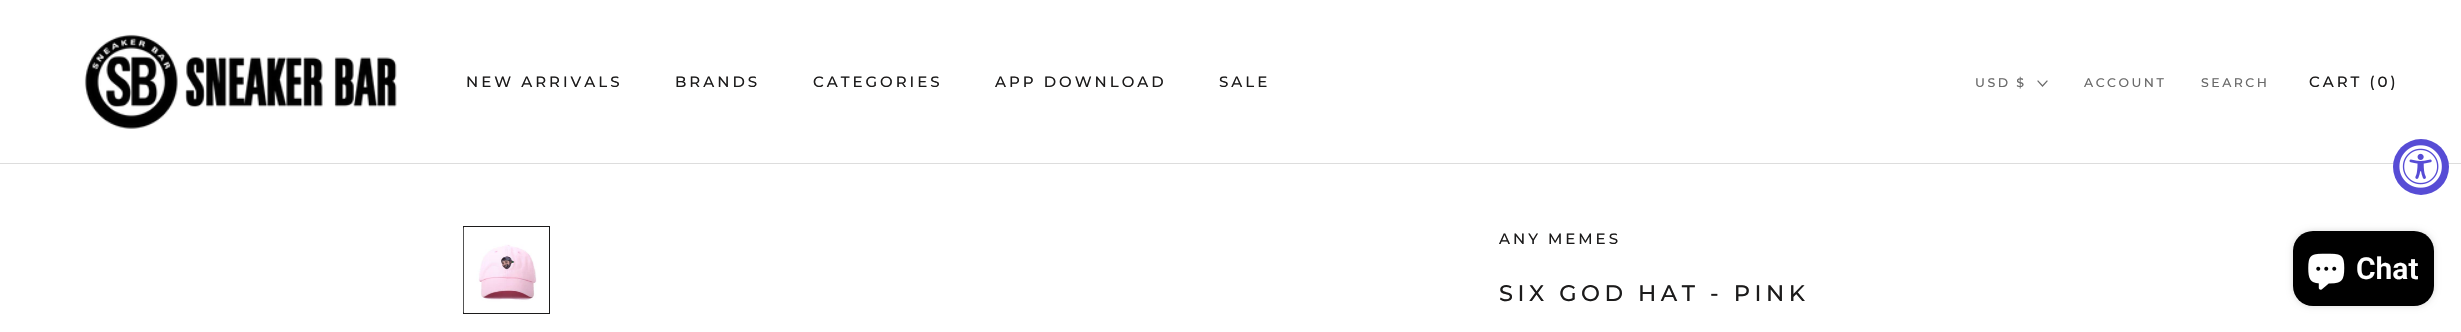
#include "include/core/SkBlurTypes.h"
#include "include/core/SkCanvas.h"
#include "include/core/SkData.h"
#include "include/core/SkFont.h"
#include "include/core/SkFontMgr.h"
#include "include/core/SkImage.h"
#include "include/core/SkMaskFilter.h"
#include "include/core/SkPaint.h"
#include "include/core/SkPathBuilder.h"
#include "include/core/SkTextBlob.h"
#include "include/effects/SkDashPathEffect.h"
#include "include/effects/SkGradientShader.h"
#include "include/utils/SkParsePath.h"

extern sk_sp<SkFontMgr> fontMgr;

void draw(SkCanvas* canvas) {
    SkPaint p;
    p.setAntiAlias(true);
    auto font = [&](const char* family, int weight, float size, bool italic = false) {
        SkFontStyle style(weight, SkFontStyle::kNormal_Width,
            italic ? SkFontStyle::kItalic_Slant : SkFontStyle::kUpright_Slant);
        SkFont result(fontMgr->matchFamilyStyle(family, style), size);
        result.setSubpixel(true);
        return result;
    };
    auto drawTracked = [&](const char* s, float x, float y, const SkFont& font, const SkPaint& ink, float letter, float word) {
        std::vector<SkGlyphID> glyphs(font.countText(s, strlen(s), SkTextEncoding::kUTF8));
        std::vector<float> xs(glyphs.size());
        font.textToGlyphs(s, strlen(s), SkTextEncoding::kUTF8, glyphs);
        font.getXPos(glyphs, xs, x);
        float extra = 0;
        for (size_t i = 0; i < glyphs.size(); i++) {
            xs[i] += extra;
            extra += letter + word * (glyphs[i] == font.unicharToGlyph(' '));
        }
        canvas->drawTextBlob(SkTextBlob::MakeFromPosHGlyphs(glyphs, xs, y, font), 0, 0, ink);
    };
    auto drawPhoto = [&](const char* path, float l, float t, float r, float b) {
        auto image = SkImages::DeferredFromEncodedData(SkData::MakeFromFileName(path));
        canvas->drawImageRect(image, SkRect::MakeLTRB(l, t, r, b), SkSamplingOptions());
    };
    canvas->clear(0xFFFFFFFF);
    p.setColor(0xFFDDDDDD);
    canvas->drawRect(SkRect::MakeLTRB(0, 163, 2461, 164), p);
    drawPhoto("media/1.png", 84, 34, 397, 129);
    auto font1 = font("Montserrat", 500, 15);
    p.setColor(0xFF1C1B1B);
    {
        const struct { const char* s; float x, y; } items[] = {
            {"NEW ARRIVALS", 466, 87},
            {"BRANDS", 675, 87},
            {"CATEGORIES", 813, 87},
            {"APP DOWNLOAD", 995, 87},
            {"SALE", 1219, 87},
        };
        for (auto [s, x, y] : items) {
            drawTracked(s, x, y, font1, p, 3, 0);
        }
    }
    auto font2 = font("Montserrat", 500, 12.5f);
    p.setColor(0xFF6A6A6A);
    drawTracked("USD $", 1975, 87, font2, p, 2.5f, 0);
    p.setStyle(SkPaint::kStroke_Style);
    p.setStrokeWidth(1.2f);
    p.setStrokeCap(SkPaint::kSquare_Cap);
    canvas->drawPath(SkPathBuilder().moveTo(2047, 81).lineTo(2042.5f, 86).lineTo(2038, 81).detach(), p);
    p.setStyle(SkPaint::kFill_Style);
    drawTracked("ACCOUNT", 2084, 87, font2, p, 2.5f, 0);
    drawTracked("SEARCH", 2201, 87, font2, p, 2.5f, 0);
    p.setColor(0xFF1C1B1B);
    drawTracked("CART (0)", 2309, 87, font1, p, 3, 0);
    p.setStyle(SkPaint::kStroke_Style);
    p.setStrokeWidth(1);
    p.setStrokeCap(SkPaint::kButt_Cap);
    canvas->drawRect(SkRect::MakeLTRB(463.5f, 226.5f, 549.5f, 313.5f), p);
    drawPhoto("media/2.png", 463, 227, 537, 313);
    p.setStyle(SkPaint::kFill_Style);
    drawTracked("ANY MEMES", 1499, 244, font1, p, 3, 0);
    auto font3 = font("Montserrat", 500, 22.5f);
    drawTracked("SIX GOD HAT - PINK", 1499, 301, font3, p, 4.5f, 0);
    p.setColor(0xFF574CD5);
    canvas->drawCircle(2421, 167, 28, p);
    drawPhoto("media/3.png", 2399, 145, 2442, 188);
    p.setColor(0x26000000);
    p.setMaskFilter(SkMaskFilter::MakeBlur(kNormal_SkBlurStyle, 3));
    canvas->drawRoundRect(SkRect::MakeLTRB(2293, 231, 2434, 306), 20, 20, p);
    p.setMaskFilter(nullptr);
    p.setColor(0xFF000000);
    canvas->drawRoundRect(SkRect::MakeLTRB(2293, 231, 2434, 306), 20, 20, p);
    drawPhoto("media/4.png", 2308, 253, 2345, 290);
    auto font4 = font("Roboto", 600, 30);
    p.setColor(0xFFFFFFFF);
    canvas->drawString("Chat", 2356, 279, font4, p);
}
